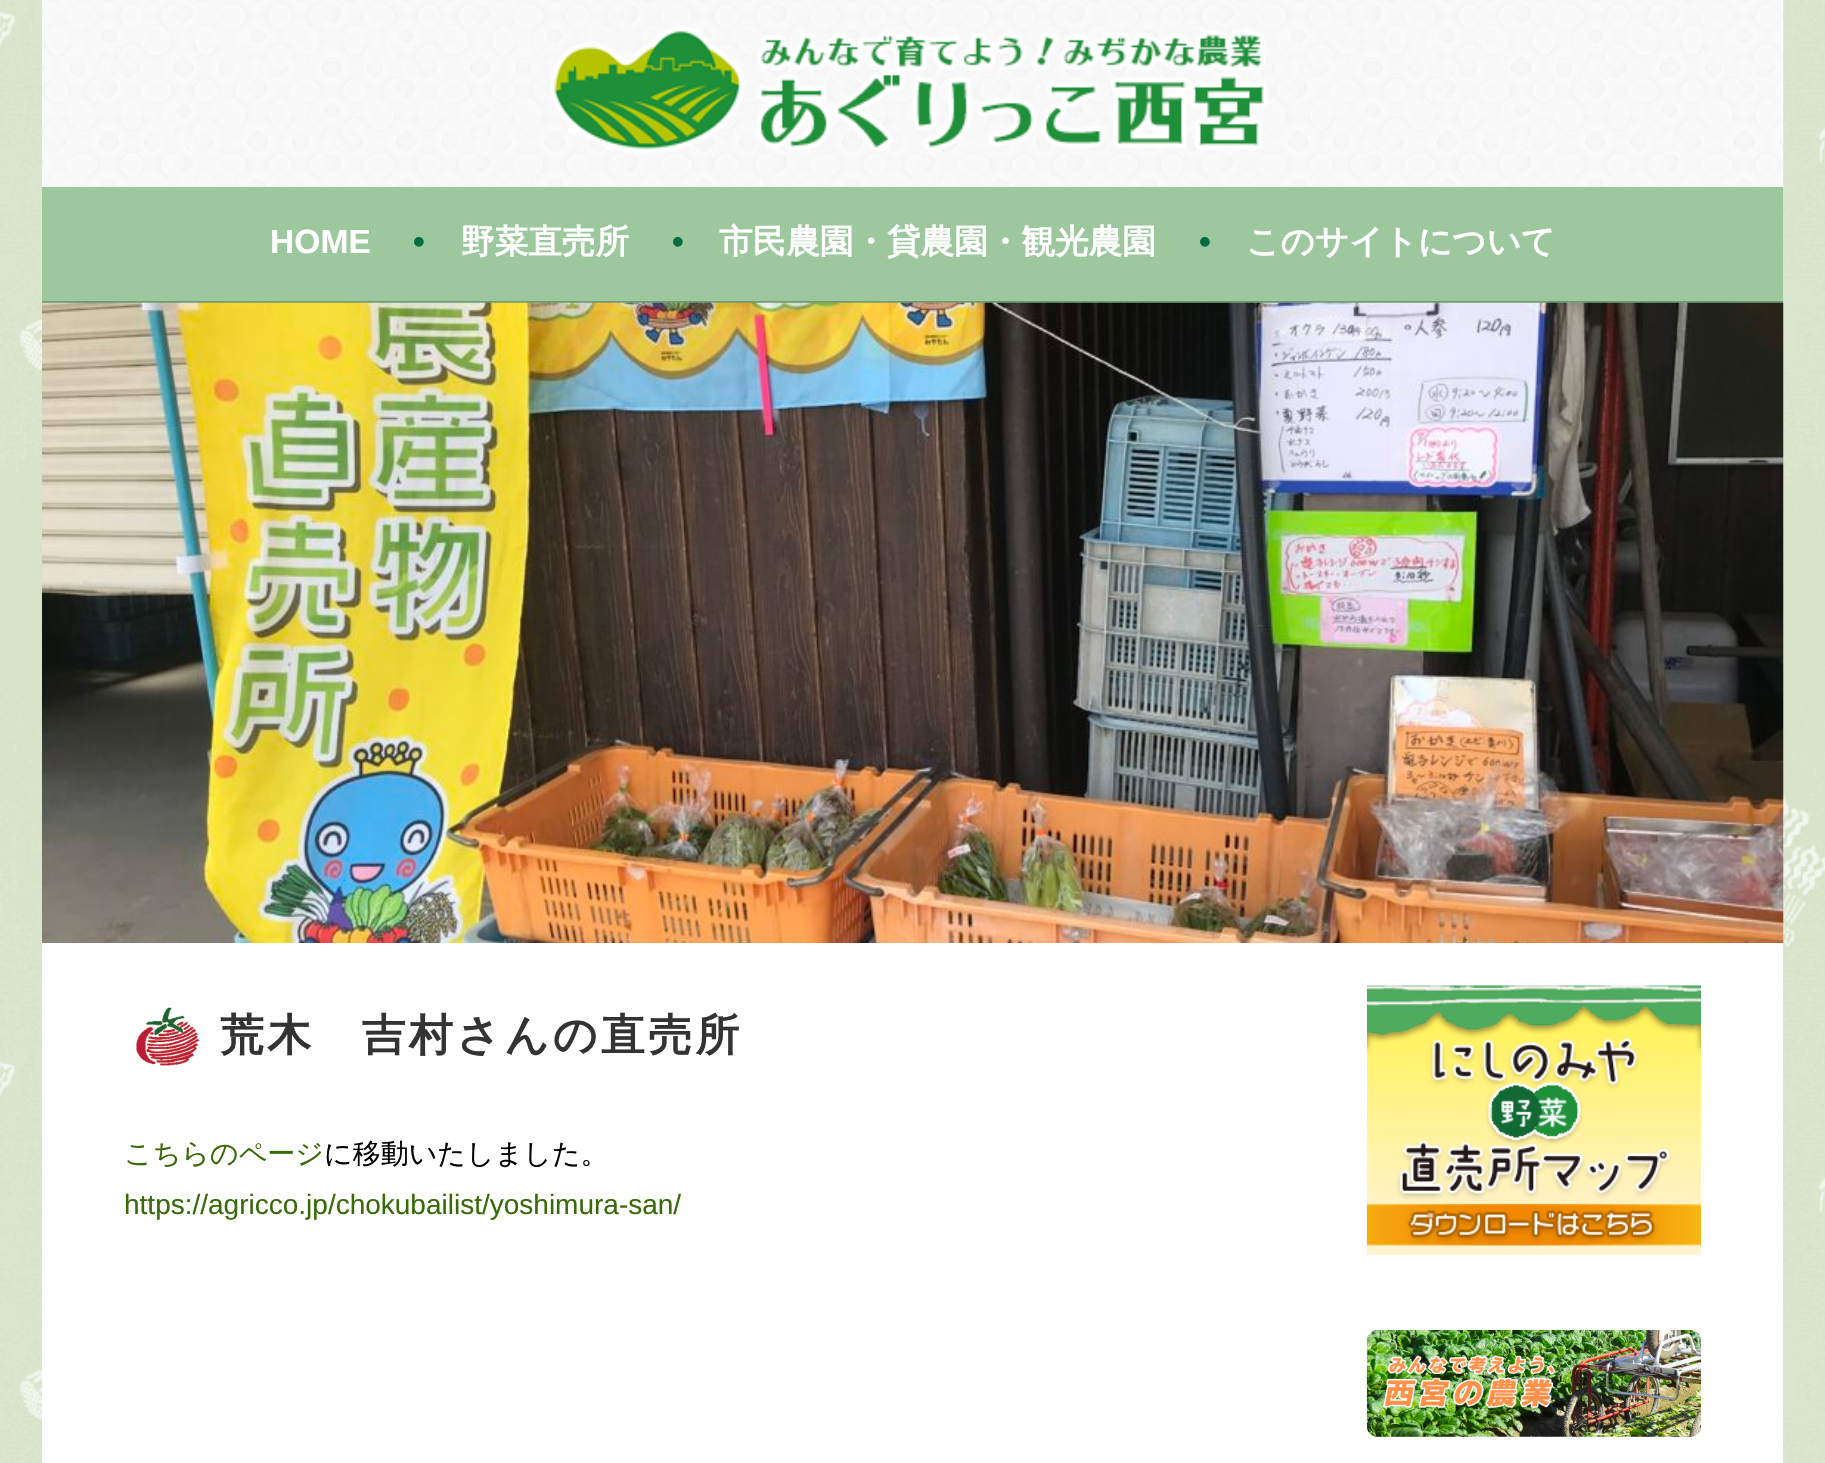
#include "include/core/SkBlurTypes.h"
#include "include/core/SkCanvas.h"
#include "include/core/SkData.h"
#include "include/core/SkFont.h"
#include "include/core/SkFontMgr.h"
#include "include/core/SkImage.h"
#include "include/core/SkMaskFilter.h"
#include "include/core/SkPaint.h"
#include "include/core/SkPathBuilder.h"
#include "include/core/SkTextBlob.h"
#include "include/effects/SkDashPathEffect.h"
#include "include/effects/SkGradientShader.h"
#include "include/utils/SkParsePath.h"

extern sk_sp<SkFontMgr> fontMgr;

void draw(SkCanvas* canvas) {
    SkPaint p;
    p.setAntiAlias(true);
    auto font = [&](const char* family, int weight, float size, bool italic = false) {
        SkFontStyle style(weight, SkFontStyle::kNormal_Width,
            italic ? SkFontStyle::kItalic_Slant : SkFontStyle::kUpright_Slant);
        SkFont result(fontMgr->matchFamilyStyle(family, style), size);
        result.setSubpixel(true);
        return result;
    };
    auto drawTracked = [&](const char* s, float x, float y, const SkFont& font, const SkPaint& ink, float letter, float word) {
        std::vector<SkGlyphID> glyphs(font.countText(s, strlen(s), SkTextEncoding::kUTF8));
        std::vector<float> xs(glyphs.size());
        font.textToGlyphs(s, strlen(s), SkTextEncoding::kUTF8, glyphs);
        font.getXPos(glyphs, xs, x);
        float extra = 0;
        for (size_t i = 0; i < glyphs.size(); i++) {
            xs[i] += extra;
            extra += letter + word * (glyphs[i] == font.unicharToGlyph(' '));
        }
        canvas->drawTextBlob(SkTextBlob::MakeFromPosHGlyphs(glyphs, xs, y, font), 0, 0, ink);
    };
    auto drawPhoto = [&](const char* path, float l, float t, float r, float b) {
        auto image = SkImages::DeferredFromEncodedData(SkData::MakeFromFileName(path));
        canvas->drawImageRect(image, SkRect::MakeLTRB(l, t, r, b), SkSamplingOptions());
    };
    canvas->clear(0xFFFFFFFF);
    drawPhoto("media/1.png", 0, 0, 1825, 1463);
    drawPhoto("media/2.png", 42, 0, 1784, 188);
    drawPhoto("media/3.png", 550, 26, 1268, 153);
    p.setColor(0xFF9DC89E);
    canvas->drawRect(SkRect::MakeLTRB(42, 187, 1783, 301), p);
    p.setColor(0xFF749975);
    canvas->drawRect(SkRect::MakeLTRB(42, 301, 1783, 303), p);
    auto font1 = font("Liberation Sans", 700, 33.6f);
    p.setColor(0xFFFFFFFF);
    canvas->drawString("HOME", 270, 253, font1, p);
    p.setColor(0xFF036D41);
    canvas->drawString("•", 413, 253, font1, p);
    auto font2 = font("WenQuanYi Zen Hei", 700, 33.6f);
    p.setColor(0xFFFFFFFF);
    canvas->drawString("野菜直売所", 461, 253, font2, p);
    p.setColor(0xFF036D41);
    canvas->drawString("•", 672, 253, font1, p);
    p.setColor(0xFFFFFFFF);
    canvas->drawString("市民農園・貸農園・観光農園", 719, 253, font2, p);
    p.setColor(0xFF036D41);
    canvas->drawString("•", 1199, 253, font1, p);
    p.setColor(0xFFFFFFFF);
    canvas->drawString("このサイトについて", 1246, 253, font2, p);
    drawPhoto("media/4.png", 42, 302, 1784, 944);
    canvas->drawRect(SkRect::MakeLTRB(42, 943, 1783, 1463), p);
    drawPhoto("media/5.png", 136, 1007, 200, 1066);
    auto font3 = font("WenQuanYi Zen Hei", 700, 43.75f);
    p.setColor(0xFF333333);
    drawTracked("荒木　吉村さんの直売所", 220, 1050, font3, p, 3.5f, 0);
    auto font4 = font("WenQuanYi Zen Hei", 500, 28);
    p.setColor(0xFF386A07);
    canvas->drawString("こちらのページ", 124, 1163, font4, p);
    p.setColor(0xFF000000);
    canvas->drawString("に移動いたしました。", 324, 1163, font4, p);
    auto font5 = font("Liberation Sans", 400, 28);
    p.setColor(0xFF386A07);
    canvas->drawString("https://agricco.jp/chokubailist/yoshimura-san/", 124, 1214, font5, p);
    drawPhoto("media/6.png", 1366, 985, 1701, 1255);
    drawPhoto("media/7.png", 1366, 1330, 1701, 1437);
}
